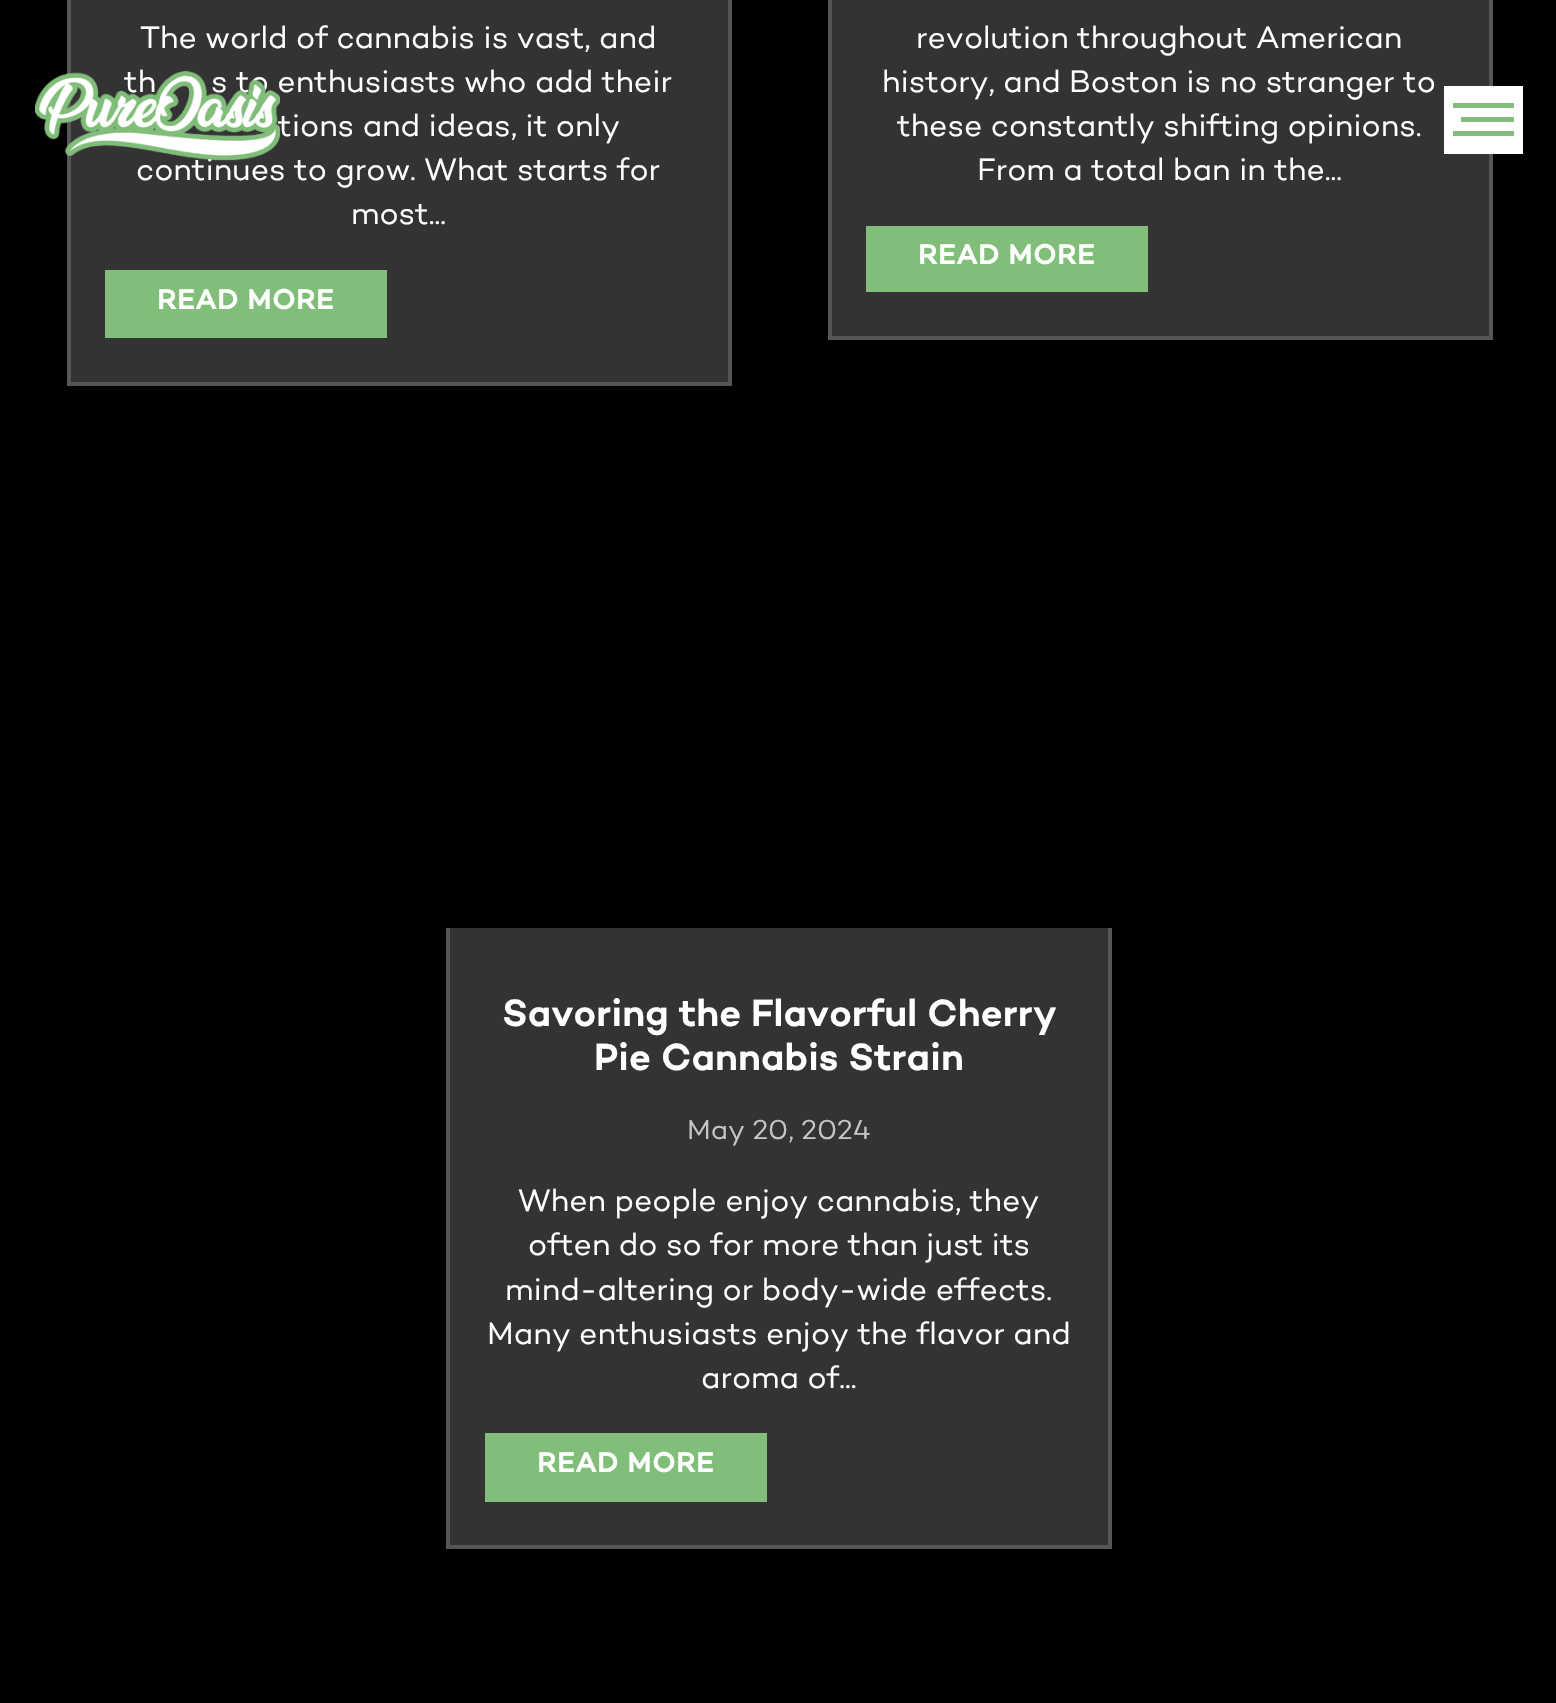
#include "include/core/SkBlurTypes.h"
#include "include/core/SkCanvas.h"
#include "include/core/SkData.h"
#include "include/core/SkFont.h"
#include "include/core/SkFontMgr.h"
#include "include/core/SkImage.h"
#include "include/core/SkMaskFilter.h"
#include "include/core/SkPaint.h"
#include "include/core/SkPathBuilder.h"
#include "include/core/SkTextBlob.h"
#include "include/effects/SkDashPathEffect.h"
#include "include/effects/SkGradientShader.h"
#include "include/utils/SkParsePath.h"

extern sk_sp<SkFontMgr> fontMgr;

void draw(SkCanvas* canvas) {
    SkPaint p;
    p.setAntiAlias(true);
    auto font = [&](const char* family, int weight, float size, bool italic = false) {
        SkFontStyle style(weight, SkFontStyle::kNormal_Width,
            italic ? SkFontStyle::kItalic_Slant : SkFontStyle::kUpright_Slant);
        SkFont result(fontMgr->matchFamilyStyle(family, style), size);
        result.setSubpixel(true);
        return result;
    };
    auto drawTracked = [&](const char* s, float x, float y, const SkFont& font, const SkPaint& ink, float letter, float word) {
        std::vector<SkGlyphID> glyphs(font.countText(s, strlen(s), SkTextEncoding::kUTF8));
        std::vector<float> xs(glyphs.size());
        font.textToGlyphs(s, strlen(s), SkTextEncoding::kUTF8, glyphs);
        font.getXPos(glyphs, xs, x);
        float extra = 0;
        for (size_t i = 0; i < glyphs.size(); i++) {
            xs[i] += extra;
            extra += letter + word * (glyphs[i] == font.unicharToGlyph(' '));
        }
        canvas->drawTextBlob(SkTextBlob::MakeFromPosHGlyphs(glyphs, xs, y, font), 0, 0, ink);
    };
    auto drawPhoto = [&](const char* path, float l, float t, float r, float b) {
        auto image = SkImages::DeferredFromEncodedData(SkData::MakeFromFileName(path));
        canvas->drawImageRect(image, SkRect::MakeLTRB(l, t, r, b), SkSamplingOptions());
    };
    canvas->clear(0xFF000000);
    {
        const struct { float l, t, r, b; SkColor color; } items[] = {
            {71, 0, 728, 382, 0xFF333333},
            {728, 0, 732, 385, 0xFF575656},
            {67, 382, 732, 386, 0xFF575656},
            {67, 0, 71, 385, 0xFF575656},
        };
        for (auto [l, t, r, b, color] : items) {
            p.setColor(color);
            canvas->drawRect(SkRect::MakeLTRB(l, t, r, b), p);
        }
    }
    auto font1 = font("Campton", 400, 31.5f);
    p.setColor(0xFFFFFFFF);
    {
        const struct { const char* s; float x, y; } items[] = {
            {"The world of cannabis is vast, and", 140, 48},
            {"th", 124, 92},
            {"s to enthusiasts who add their", 211, 92},
            {"tions and ideas, it only", 278, 136},
            {"continues to grow. What starts for", 136, 180},
            {"most...", 351, 224},
        };
        for (auto [s, x, y] : items) {
            canvas->drawString(s, x, y, font1, p);
        }
    }
    p.setColor(0xFF80BE79);
    canvas->drawRect(SkRect::MakeLTRB(105, 270, 387, 338), p);
    auto font2 = font("Campton", 700, 28);
    p.setColor(0xFFFFFFFF);
    drawTracked("READ MORE", 157, 309, font2, p, 0.9f, 0);
    {
        const struct { float l, t, r, b; SkColor color; } items[] = {
            {832, 0, 1489, 336, 0xFF333333},
            {1489, 0, 1493, 340, 0xFF575656},
            {828, 336, 1493, 340, 0xFF575656},
            {828, 0, 832, 340, 0xFF575656},
        };
        for (auto [l, t, r, b, color] : items) {
            p.setColor(color);
            canvas->drawRect(SkRect::MakeLTRB(l, t, r, b), p);
        }
    }
    p.setColor(0xFFFFFFFF);
    {
        const struct { const char* s; float x, y; } items[] = {
            {"revolution throughout American", 916, 48},
            {"history, and Boston is no stranger to", 882, 92},
            {"these constantly shifting opinions.", 897, 136},
            {"From a total ban in the...", 977, 180},
        };
        for (auto [s, x, y] : items) {
            canvas->drawString(s, x, y, font1, p);
        }
    }
    p.setColor(0xFF80BE79);
    canvas->drawRect(SkRect::MakeLTRB(866, 226, 1148, 292), p);
    p.setColor(0xFFFFFFFF);
    drawTracked("READ MORE", 918, 264, font2, p, 0.9f, 0);
    {
        const struct { float l, t, r, b; SkColor color; } items[] = {
            {450, 928, 1108, 1545, 0xFF333333},
            {1108, 928, 1112, 1549, 0xFF575656},
            {446, 1545, 1111, 1549, 0xFF575656},
            {446, 928, 450, 1549, 0xFF575656},
        };
        for (auto [l, t, r, b, color] : items) {
            p.setColor(color);
            canvas->drawRect(SkRect::MakeLTRB(l, t, r, b), p);
        }
    }
    auto font3 = font("Campton", 600, 38.5f);
    p.setColor(0xFFFFFFFF);
    canvas->drawString("Savoring the Flavorful Cherry", 502, 1026, font3, p);
    canvas->drawString("Pie Cannabis Strain", 594, 1070, font3, p);
    auto font4 = font("Campton", 400, 28);
    p.setColor(0xFFC7C4C4);
    canvas->drawString("May 20, 2024", 687, 1139, font4, p);
    p.setColor(0xFFFFFFFF);
    {
        const struct { const char* s; float x, y; } items[] = {
            {"When people enjoy cannabis, they", 518, 1211},
            {"often do so for more than just its", 528, 1255},
            {"mind-altering or body-wide effects.", 505, 1300},
            {"Many enthusiasts enjoy the flavor and", 487, 1344},
            {"aroma of...", 701, 1388},
        };
        for (auto [s, x, y] : items) {
            canvas->drawString(s, x, y, font1, p);
        }
    }
    p.setColor(0xFF80BE79);
    canvas->drawRect(SkRect::MakeLTRB(485, 1433, 767, 1502), p);
    p.setColor(0xFFFFFFFF);
    drawTracked("READ MORE", 537, 1472, font2, p, 0.9f, 0);
    drawPhoto("media/1.png", 35, 70, 280, 161);
    {
        const struct { float l, t, r, b; SkColor color; } items[] = {
            {1444, 86, 1523, 154, 0xFFFFFFFF},
            {1453, 103, 1514, 108, 0xFF80BE79},
            {1461, 117, 1514, 122, 0xFF80BE79},
            {1453, 131, 1514, 136, 0xFF80BE79},
        };
        for (auto [l, t, r, b, color] : items) {
            p.setColor(color);
            canvas->drawRect(SkRect::MakeLTRB(l, t, r, b), p);
        }
    }
}
